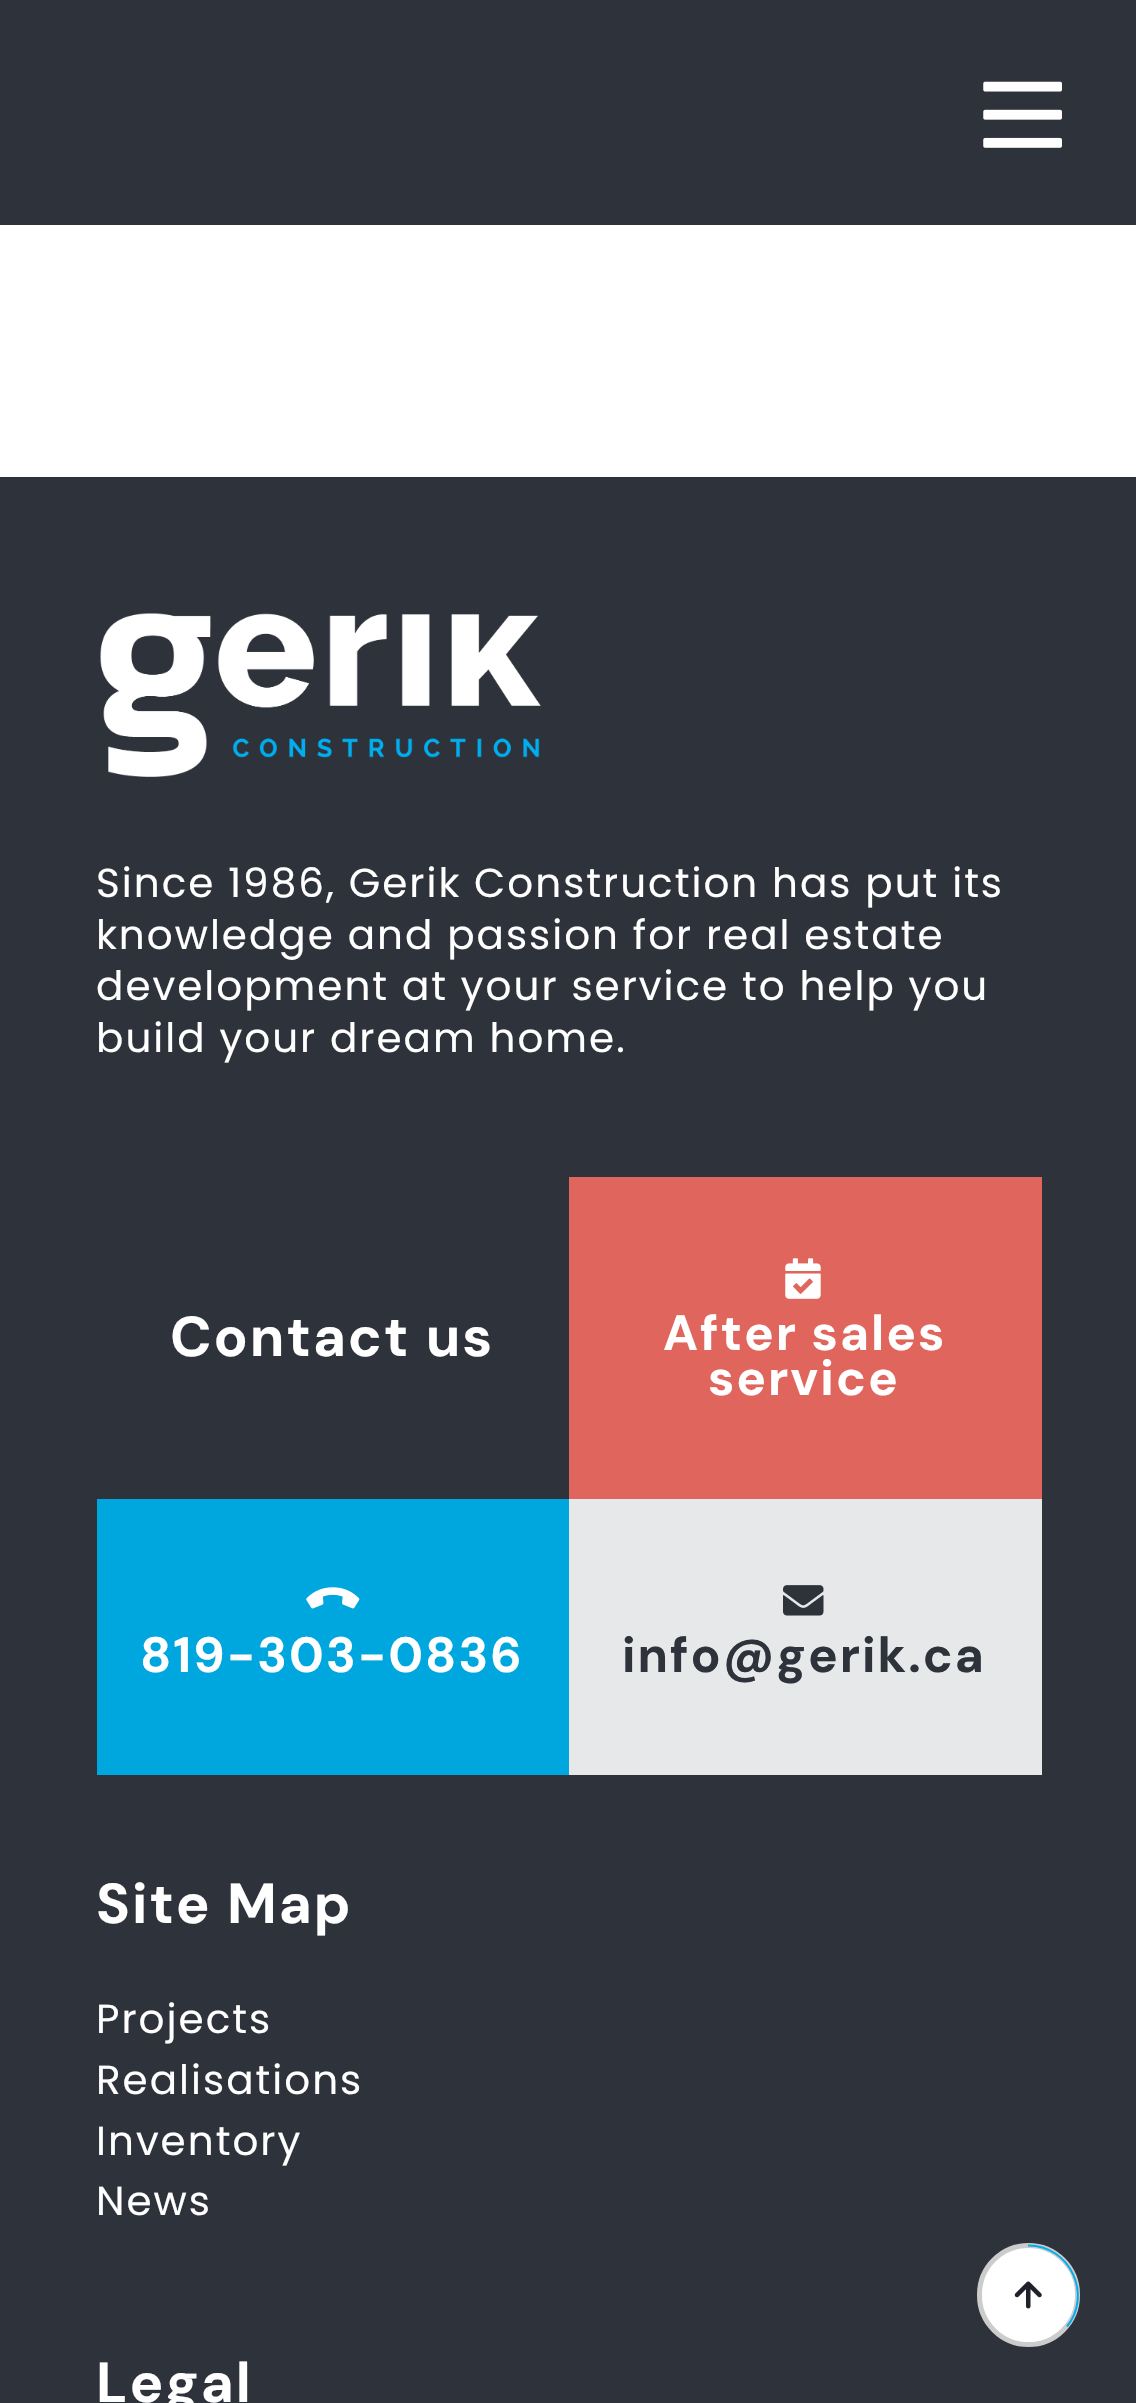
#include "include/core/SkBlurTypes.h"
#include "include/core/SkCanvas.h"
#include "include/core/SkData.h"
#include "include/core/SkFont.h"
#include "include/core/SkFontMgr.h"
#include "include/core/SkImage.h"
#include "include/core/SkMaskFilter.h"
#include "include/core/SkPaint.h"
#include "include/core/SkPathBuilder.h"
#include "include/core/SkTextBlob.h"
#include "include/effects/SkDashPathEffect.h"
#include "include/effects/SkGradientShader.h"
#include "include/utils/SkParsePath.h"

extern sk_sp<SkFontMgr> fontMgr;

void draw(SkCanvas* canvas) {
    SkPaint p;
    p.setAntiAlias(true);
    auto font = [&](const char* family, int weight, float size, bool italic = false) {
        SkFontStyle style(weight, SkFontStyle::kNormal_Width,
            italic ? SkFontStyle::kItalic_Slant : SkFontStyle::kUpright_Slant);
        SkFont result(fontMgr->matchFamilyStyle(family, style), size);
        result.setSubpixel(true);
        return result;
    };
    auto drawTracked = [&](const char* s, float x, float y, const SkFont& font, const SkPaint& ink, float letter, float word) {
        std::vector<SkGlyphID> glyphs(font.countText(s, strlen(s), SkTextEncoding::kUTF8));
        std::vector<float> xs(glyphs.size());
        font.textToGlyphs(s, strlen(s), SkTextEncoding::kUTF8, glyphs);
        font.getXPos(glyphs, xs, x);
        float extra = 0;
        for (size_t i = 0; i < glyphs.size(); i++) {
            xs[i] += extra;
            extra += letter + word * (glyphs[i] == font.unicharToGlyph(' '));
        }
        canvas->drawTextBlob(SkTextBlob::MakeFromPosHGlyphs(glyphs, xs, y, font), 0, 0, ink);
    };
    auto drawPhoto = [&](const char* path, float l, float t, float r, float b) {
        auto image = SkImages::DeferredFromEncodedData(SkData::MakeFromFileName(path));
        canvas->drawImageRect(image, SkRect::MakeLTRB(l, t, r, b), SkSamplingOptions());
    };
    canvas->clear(0xFFFFFFFF);
    p.setColor(0xFF2E323A);
    canvas->drawRect(SkRect::MakeLTRB(0, 0, 1136, 225), p);
    drawPhoto("media/1.png", 983, 81, 1062, 148);
    canvas->drawRect(SkRect::MakeLTRB(0, 477, 1136, 2403), p);
    drawPhoto("media/2.png", 100, 613, 541, 777);
    auto font1 = font("Poppins", 400, 40.5f);
    p.setColor(0xFFFFFFFF);
    {
        const struct { const char* s; float x, y; } items[] = {
            {"Since 1986, Gerik Construction has put its", 96, 897},
            {"knowledge and passion for real estate", 96, 949},
            {"development at your service to help you", 96, 1000},
            {"build your dream home.", 96, 1052},
        };
        for (auto [s, x, y] : items) {
            drawTracked(s, x, y, font1, p, 2, 0);
        }
    }
    auto font2 = font("DM Sans", 700, 56.25f);
    drawTracked("Contact us", 170, 1356, font2, p, 2, 0);
    p.setColor(0xFFE0655D);
    canvas->drawRect(SkRect::MakeLTRB(569, 1177, 1042, 1499), p);
    drawPhoto("media/3.png", 785, 1258, 821, 1299);
    auto font3 = font("DM Sans", 700, 49.5f);
    p.setColor(0xFFFFFFFF);
    drawTracked("After sales", 663, 1350, font3, p, 2, 0);
    drawTracked("service", 708, 1395, font3, p, 2, 0);
    p.setColor(0xFF00A6DE);
    canvas->drawRect(SkRect::MakeLTRB(97, 1499, 569, 1775), p);
    drawPhoto("media/4.png", 306, 1587, 360, 1609);
    p.setColor(0xFFFFFFFF);
    drawTracked("819-303-0836", 140, 1672, font3, p, 2, 0);
    p.setColor(0xFFE7E8E9);
    canvas->drawRect(SkRect::MakeLTRB(569, 1499, 1042, 1775), p);
    drawPhoto("media/5.png", 783, 1585, 824, 1616);
    p.setColor(0xFF2E323A);
    drawTracked("info@gerik.ca", 622, 1672, font3, p, 2, 0);
    p.setColor(0xFFFFFFFF);
    drawTracked("Site Map", 96, 1923, font2, p, 2, 0);
    {
        const struct { const char* s; float x, y; } items[] = {
            {"Projects", 96, 2033},
            {"Realisations", 96, 2094},
            {"Inventory", 96, 2155},
            {"News", 96, 2215},
        };
        for (auto [s, x, y] : items) {
            drawTracked(s, x, y, font1, p, 2, 0);
        }
    }
    drawTracked("Legal", 96, 2402, font2, p, 2, 0);
    canvas->drawRoundRect(SkRect::MakeLTRB(979.5f, 2245.5f, 1077.5f, 2344.5f), 49, 49, p);
    p.setStyle(SkPaint::kStroke_Style);
    p.setStrokeWidth(5);
    p.setColor(0xFFCCCCCC);
    canvas->drawRoundRect(SkRect::MakeLTRB(979.5f, 2245.5f, 1077.5f, 2344.5f), 49, 49, p);
    p.setStrokeWidth(2);
    p.setColor(0xFF00AEED);
    canvas->drawPath(SkPathBuilder().moveTo(1028, 2245.5f).cubicTo(1070.5f, 2245.5f, 1092.5f, 2295, 1067, 2326.5f).detach(), p);
    drawPhoto("media/6.png", 1014, 2281, 1042, 2309);
}
